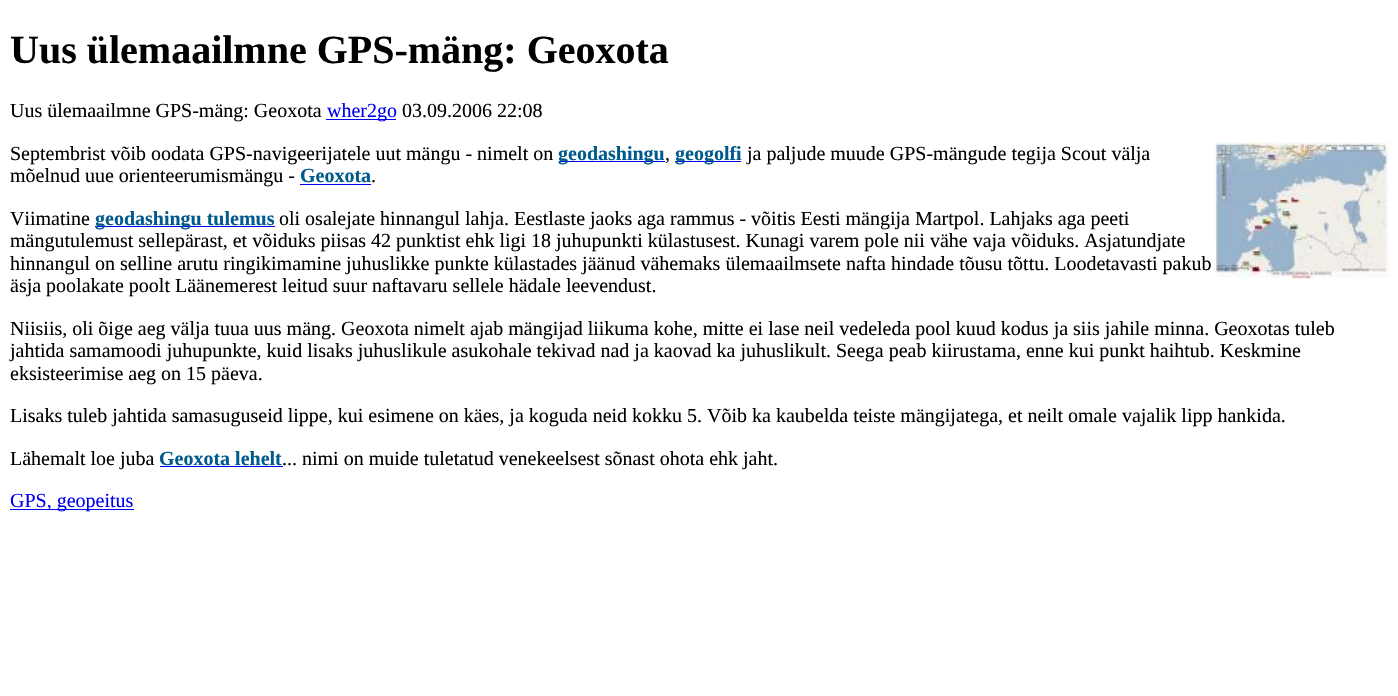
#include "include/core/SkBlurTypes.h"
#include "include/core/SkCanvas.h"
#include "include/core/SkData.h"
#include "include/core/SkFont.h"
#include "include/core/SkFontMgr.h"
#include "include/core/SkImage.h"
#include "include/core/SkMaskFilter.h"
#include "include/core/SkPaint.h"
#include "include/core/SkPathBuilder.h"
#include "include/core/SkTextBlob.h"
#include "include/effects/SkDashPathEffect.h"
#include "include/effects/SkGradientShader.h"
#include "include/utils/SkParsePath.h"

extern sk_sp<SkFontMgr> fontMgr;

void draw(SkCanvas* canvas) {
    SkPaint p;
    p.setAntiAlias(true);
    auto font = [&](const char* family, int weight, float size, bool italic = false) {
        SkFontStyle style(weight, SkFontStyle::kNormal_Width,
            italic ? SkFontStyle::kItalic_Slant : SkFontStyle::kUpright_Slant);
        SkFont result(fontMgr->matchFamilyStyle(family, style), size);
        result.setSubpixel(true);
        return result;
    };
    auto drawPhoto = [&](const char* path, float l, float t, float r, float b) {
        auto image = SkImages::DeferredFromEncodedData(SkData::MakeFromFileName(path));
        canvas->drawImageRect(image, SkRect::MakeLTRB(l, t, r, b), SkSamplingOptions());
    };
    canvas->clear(0xFFFFFFFF);
    auto font1 = font("Liberation Serif", 700, 40);
    p.setColor(0xFF000000);
    canvas->drawString("Uus ülemaailmne GPS-mäng: Geoxota", 10, 63, font1, p);
    auto font2 = font("Liberation Serif", 400, 20);
    canvas->drawString("Uus ülemaailmne GPS-mäng: Geoxota", 10, 117, font2, p);
    p.setColor(0xFF0000EE);
    canvas->drawRect(SkRect::MakeLTRB(326, 119, 396, 120), p);
    canvas->drawString("wher2go", 327, 117, font2, p);
    p.setColor(0xFF000000);
    canvas->drawString("03.09.2006 22:08", 402, 117, font2, p);
    canvas->drawString("Septembrist võib oodata GPS-navigeerijatele uut mängu - nimelt on", 10, 160, font2, p);
    p.setColor(0xFF0000EE);
    canvas->drawRect(SkRect::MakeLTRB(559, 161, 665, 162), p);
    auto font3 = font("Liberation Serif", 700, 20);
    p.setColor(0xFF005A8C);
    canvas->drawString("geodashingu", 558, 160, font3, p);
    p.setColor(0xFF000000);
    canvas->drawString(",", 665, 160, font2, p);
    p.setColor(0xFF0000EE);
    canvas->drawRect(SkRect::MakeLTRB(675, 161, 741, 162), p);
    p.setColor(0xFF005A8C);
    canvas->drawString("geogolfi", 675, 160, font3, p);
    p.setColor(0xFF000000);
    canvas->drawString("ja paljude muude GPS-mängude tegija Scout välja", 747, 160, font2, p);
    drawPhoto("media/1.png", 1214, 142, 1389, 279);
    canvas->drawString("mõelnud uue orienteerumismängu -", 10, 182, font2, p);
    p.setColor(0xFF005A8C);
    canvas->drawString("Geoxota", 300, 182, font3, p);
    p.setColor(0xFF0000EE);
    canvas->drawRect(SkRect::MakeLTRB(300, 184, 371, 185), p);
    p.setColor(0xFF000000);
    canvas->drawString(".", 371, 182, font2, p);
    canvas->drawString("Viimatine", 10, 225, font2, p);
    p.setColor(0xFF0000EE);
    canvas->drawRect(SkRect::MakeLTRB(95, 226, 275, 227), p);
    p.setColor(0xFF005A8C);
    canvas->drawString("geodashingu tulemus", 95, 225, font3, p);
    p.setColor(0xFF000000);
    {
        const struct { const char* s; float x, y; } items[] = {
            {"oli osalejate hinnangul lahja. Eestlaste jaoks aga rammus - võitis Eesti mängija Martpol. Lahjaks aga peeti", 279, 225},
            {"mängutulemust sellepärast, et võiduks piisas 42 punktist ehk ligi 18 juhupunkti külastusest. Kunagi varem pole nii vähe vaja võiduks. Asjatundjate", 10, 247},
            {"hinnangul on selline arutu ringikimamine juhuslikke punkte külastades jäänud vähemaks ülemaailmsete nafta hindade tõusu tõttu. Loodetavasti pakub", 10, 270},
            {"äsja poolakate poolt Läänemerest leitud suur naftavaru sellele hädale leevendust.", 10, 292},
            {"Niisiis, oli õige aeg välja tuua uus mäng. Geoxota nimelt ajab mängijad liikuma kohe, mitte ei lase neil vedeleda pool kuud kodus ja siis jahile minna. Geoxotas tuleb", 10, 335},
            {"jahtida samamoodi juhupunkte, kuid lisaks juhuslikule asukohale tekivad nad ja kaovad ka juhuslikult. Seega peab kiirustama, enne kui punkt haihtub. Keskmine", 10, 357},
            {"eksisteerimise aeg on 15 päeva.", 10, 380},
            {"Lisaks tuleb jahtida samasuguseid lippe, kui esimene on käes, ja koguda neid kokku 5. Võib ka kaubelda teiste mängijatega, et neilt omale vajalik lipp hankida.", 10, 422},
            {"Lähemalt loe juba", 10, 465},
        };
        for (auto [s, x, y] : items) {
            canvas->drawString(s, x, y, font2, p);
        }
    }
    p.setColor(0xFF005A8C);
    canvas->drawString("Geoxota lehelt", 159, 465, font3, p);
    p.setColor(0xFF0000EE);
    canvas->drawRect(SkRect::MakeLTRB(160, 466, 283, 467), p);
    p.setColor(0xFF000000);
    canvas->drawString("... nimi on muide tuletatud venekeelsest sõnast ohota ehk jaht.", 282, 465, font2, p);
    p.setColor(0xFF0000EE);
    canvas->drawRect(SkRect::MakeLTRB(10, 509, 134, 510), p);
    canvas->drawString("GPS, geopeitus", 10, 507, font2, p);
}
